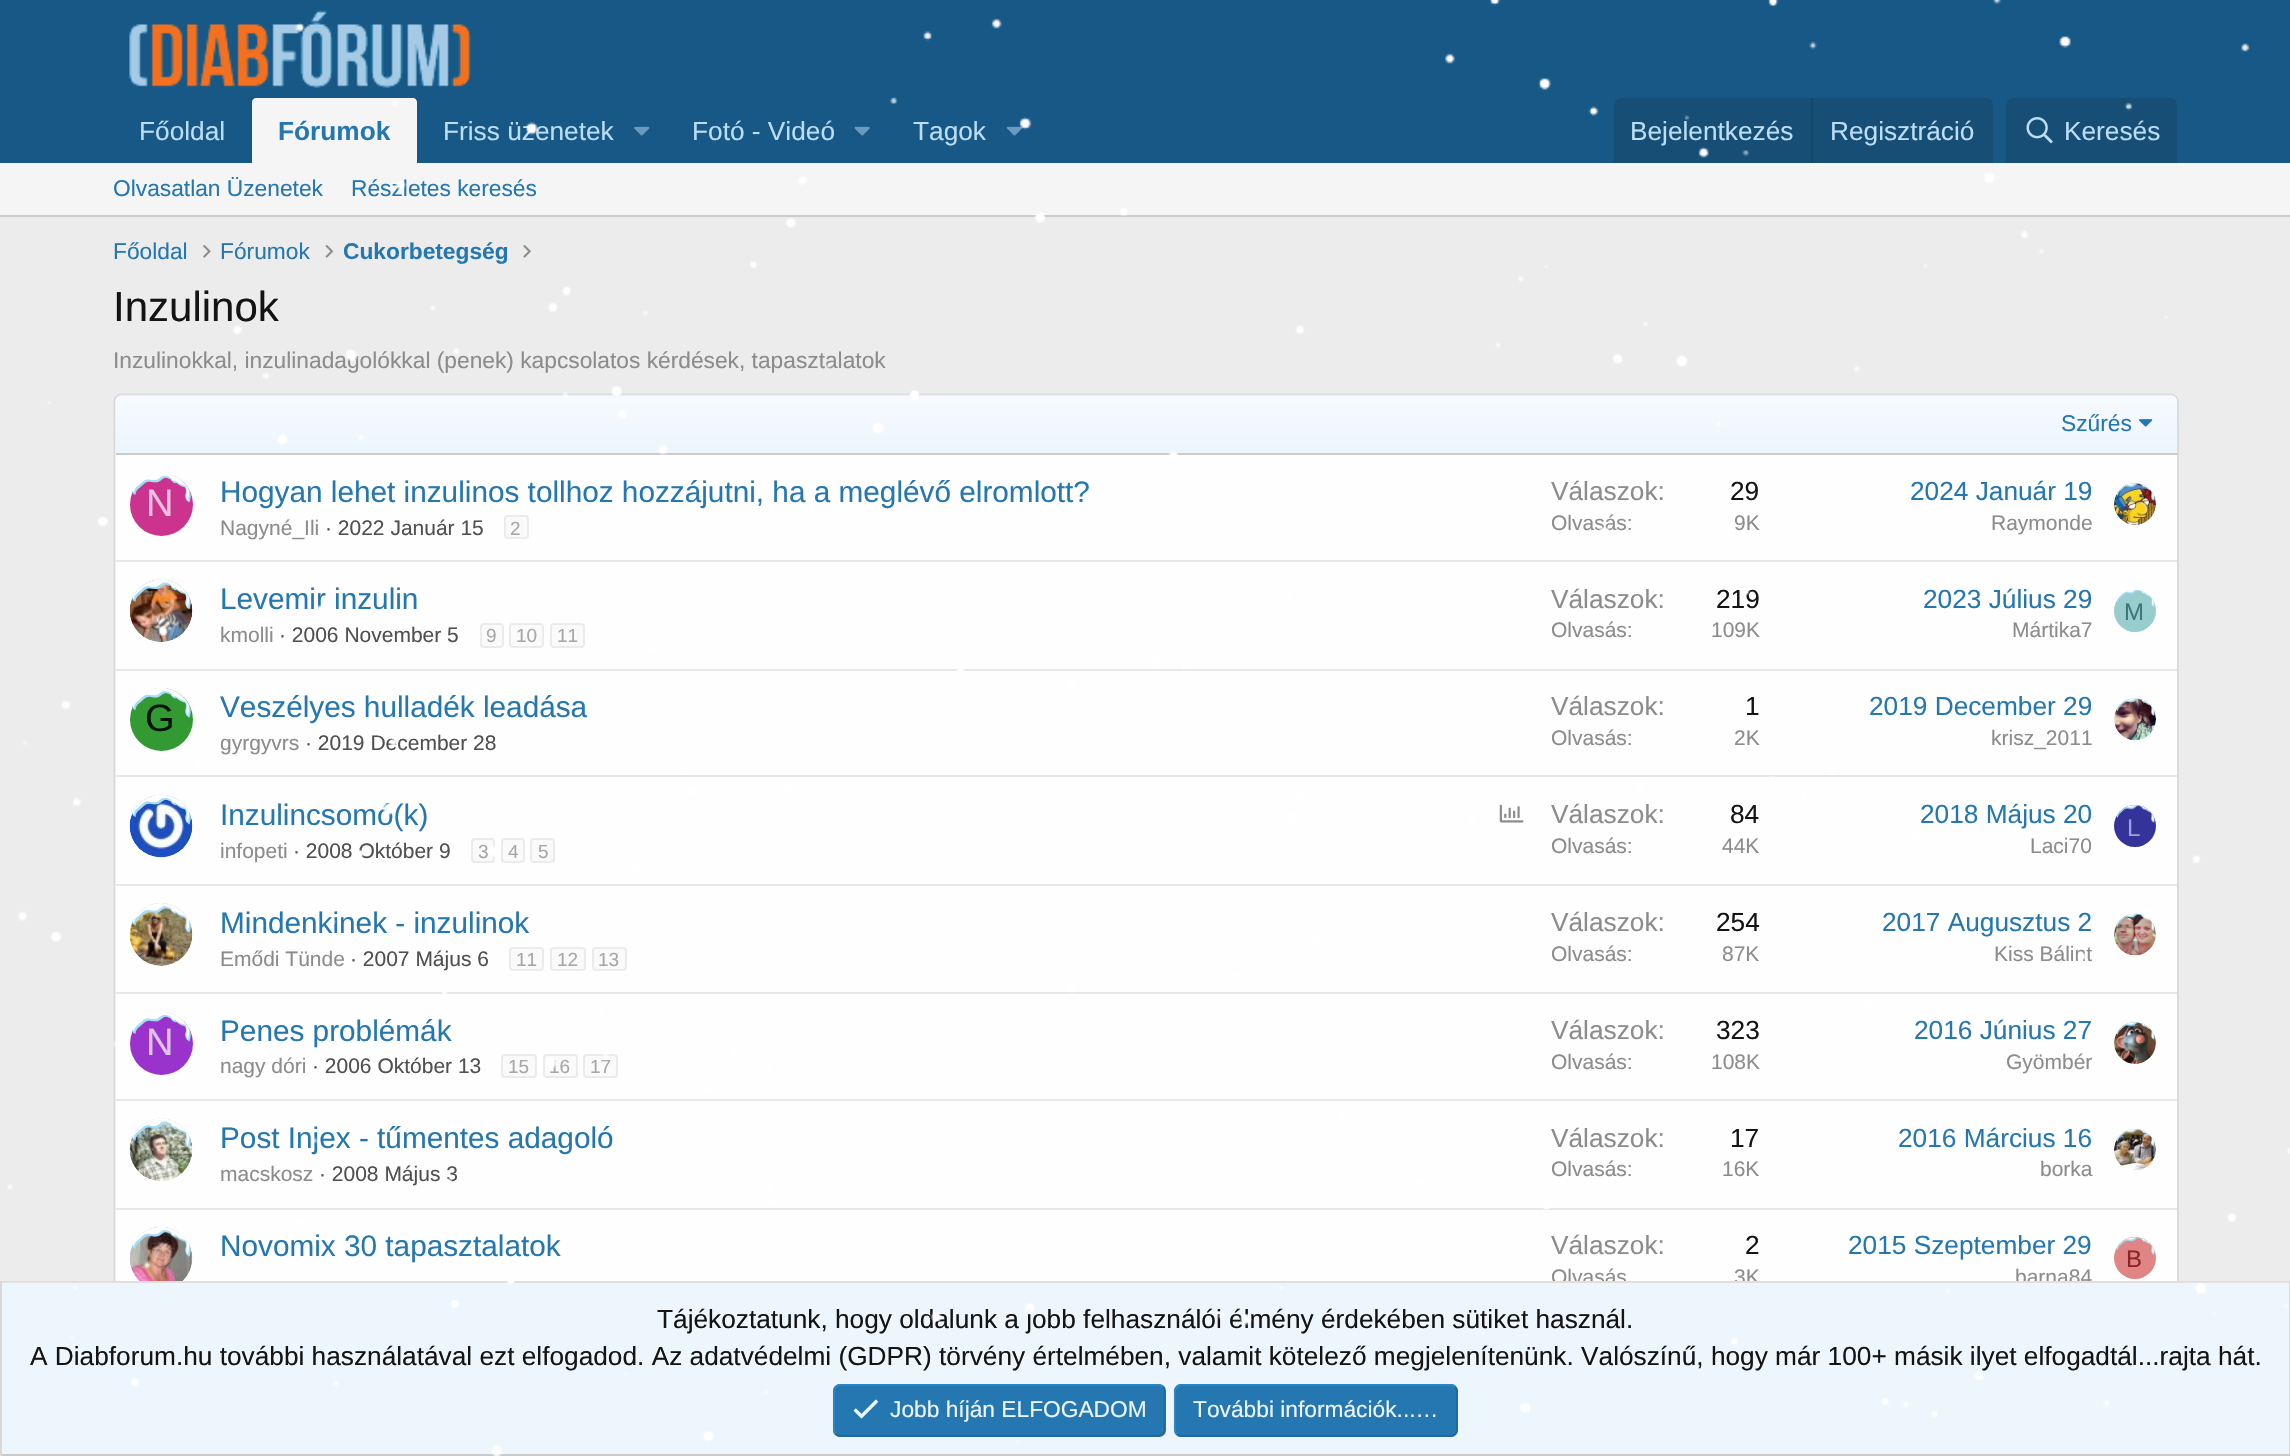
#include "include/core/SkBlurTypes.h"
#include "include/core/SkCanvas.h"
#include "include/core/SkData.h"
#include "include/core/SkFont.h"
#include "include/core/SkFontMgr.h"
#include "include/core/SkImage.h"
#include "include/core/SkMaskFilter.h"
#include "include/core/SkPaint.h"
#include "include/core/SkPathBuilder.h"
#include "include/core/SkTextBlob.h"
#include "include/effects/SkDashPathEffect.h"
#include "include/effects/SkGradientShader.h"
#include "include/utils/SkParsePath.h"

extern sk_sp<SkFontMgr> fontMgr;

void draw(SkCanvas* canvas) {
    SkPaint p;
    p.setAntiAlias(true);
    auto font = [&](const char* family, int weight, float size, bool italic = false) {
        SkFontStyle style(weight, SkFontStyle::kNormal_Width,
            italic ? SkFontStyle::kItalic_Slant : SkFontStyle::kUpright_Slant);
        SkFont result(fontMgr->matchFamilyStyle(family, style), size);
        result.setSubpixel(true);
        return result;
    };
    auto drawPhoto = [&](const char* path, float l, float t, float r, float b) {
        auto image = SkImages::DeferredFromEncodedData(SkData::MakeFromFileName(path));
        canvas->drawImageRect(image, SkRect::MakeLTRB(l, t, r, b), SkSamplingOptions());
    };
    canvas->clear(0xFFECECEC);
    p.setColor(0xFF185886);
    canvas->drawRect(SkRect::MakeLTRB(0, 0, 2290, 163), p);
    drawPhoto("media/2.png", 129, 10, 471, 88);
    auto font1 = font("Liberation Sans", 400, 26.25f);
    p.setColor(0xFFBCDEF5);
    canvas->drawString("Főoldal", 139, 140, font1, p);
    p.setColor(0xFFF5F5F5);
    canvas->drawPath(SkPathBuilder().moveTo(256, 98).lineTo(413, 98).cubicTo(415, 98, 417, 100, 417, 102).lineTo(417, 163).lineTo(252, 163).lineTo(252, 102).cubicTo(252, 100, 254, 98, 256, 98).close().detach(), p);
    auto font2 = font("Liberation Sans", 700, 26.25f);
    p.setColor(0xFF2577B1);
    canvas->drawString("Fórumok", 278, 140, font2, p);
    p.setColor(0xFFBCDEF5);
    canvas->drawString("Friss üzenetek", 443, 140, font1, p);
    drawPhoto("media/3.png", 634, 126, 650, 136);
    canvas->drawString("Fotó - Videó", 692, 140, font1, p);
    drawPhoto("media/4.png", 854, 126, 870, 136);
    canvas->drawString("Tagok", 913, 140, font1, p);
    drawPhoto("media/5.png", 1006, 126, 1022, 136);
    p.setColor(0xFF174E75);
    canvas->drawPath(SkPathBuilder().moveTo(1621, 98).lineTo(1986, 98).cubicTo(1990, 98, 1993, 101, 1993, 105).lineTo(1993, 163).lineTo(1614, 163).lineTo(1614, 105).cubicTo(1614, 101, 1617, 98, 1621, 98).close().detach(), p);
    p.setColor(0xFFBCDEF5);
    canvas->drawString("Bejelentkezés", 1630, 140, font1, p);
    p.setColor(0xFF174566);
    canvas->drawRect(SkRect::MakeLTRB(1811, 98, 1813, 163), p);
    p.setColor(0xFFBCDEF5);
    canvas->drawString("Regisztráció", 1830, 140, font1, p);
    p.setColor(0xFF174E75);
    canvas->drawPath(SkPathBuilder().moveTo(2013, 98).lineTo(2170, 98).cubicTo(2174, 98, 2177, 101, 2177, 105).lineTo(2177, 163).lineTo(2006, 163).lineTo(2006, 105).cubicTo(2006, 101, 2009, 98, 2013, 98).close().detach(), p);
    drawPhoto("media/6.png", 2026, 117, 2053, 144);
    p.setColor(0xFFBCDEF5);
    canvas->drawString("Keresés", 2064, 140, font1, p);
    p.setColor(0xFFF5F5F5);
    canvas->drawRect(SkRect::MakeLTRB(0, 163, 2290, 215), p);
    p.setColor(0xFFCBCBCB);
    canvas->drawRect(SkRect::MakeLTRB(0, 215, 2290, 217), p);
    auto font3 = font("Liberation Sans", 400, 22.75f);
    p.setColor(0xFF2577B1);
    {
        const struct { const char* s; float x, y; } items[] = {
            {"Olvasatlan Üzenetek", 113, 196},
            {"Részletes keresés", 351, 196},
            {"Főoldal", 113, 259},
        };
        for (auto [s, x, y] : items) {
            canvas->drawString(s, x, y, font3, p);
        }
    }
    drawPhoto("media/7.png", 203, 245, 211, 258);
    canvas->drawString("Fórumok", 220, 259, font3, p);
    drawPhoto("media/8.png", 325, 245, 334, 258);
    auto font4 = font("Liberation Sans", 700, 22.75f);
    canvas->drawString("Cukorbetegség", 343, 259, font4, p);
    drawPhoto("media/9.png", 523, 245, 531, 258);
    auto font5 = font("Liberation Sans", 400, 42);
    p.setColor(0xFF141414);
    canvas->drawString("Inzulinok", 113, 321, font5, p);
    p.setColor(0xFF8C8C8C);
    canvas->drawString("Inzulinokkal, inzulinadagolókkal (penek) kapcsolatos kérdések, tapasztalatok", 113, 368, font3, p);
    p.setColor(0xFFFEFEFE);
    canvas->drawRoundRect(SkRect::MakeLTRB(114, 394, 2179, 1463), 7, 7, p);
    p.setStyle(SkPaint::kStroke_Style);
    p.setStrokeWidth(1.8f);
    p.setColor(0xFFDFDFDF);
    canvas->drawPath(SkPathBuilder().moveTo(116.5f, 396.5f).cubicTo(117.5f, 395.5f, 119, 394.5f, 121, 394.5f).lineTo(2172, 394.5f).cubicTo(2173.5f, 394.5f, 2175, 395.5f, 2176, 396.5f).detach(), p);
    p.setColor(0xFFD8D8D8);
    canvas->drawPath(SkPathBuilder().moveTo(2176, 396.5f).cubicTo(2177, 397.5f, 2178, 399, 2178, 401).lineTo(2178, 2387).cubicTo(2178, 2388.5f, 2177, 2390, 2176, 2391.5f).detach(), p);
    canvas->drawPath(SkPathBuilder().moveTo(116.5f, 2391.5f).cubicTo(115.5f, 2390, 114.5f, 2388.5f, 114.5f, 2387).lineTo(114.5f, 401).cubicTo(114.5f, 399, 115.5f, 397.5f, 116.5f, 396.5f).detach(), p);
    p.setStyle(SkPaint::kFill_Style);
    {
        const SkColor colors[] = {0xFFEDF6FD, 0xFFF6FAFE};
        const float stops[] = {0, 1};
        const SkPoint ends[] = {{1146, 453}, {1146, 396}};
        p.setShader(SkGradientShader::MakeLinear(ends, colors, stops, 2, SkTileMode::kClamp));
        p.setAlpha(255);
    }
    canvas->drawPath(SkPathBuilder().moveTo(121, 396).lineTo(2172, 396).cubicTo(2175, 396, 2177, 398, 2177, 401).lineTo(2177, 453).lineTo(116, 453).lineTo(116, 401).cubicTo(116, 398, 118, 396, 121, 396).close().detach(), p);
    p.setShader(nullptr);
    p.setColor(0xFFCBCBCB);
    canvas->drawRect(SkRect::MakeLTRB(116, 453, 2177, 455), p);
    p.setColor(0xFF2577B1);
    canvas->drawString("Szűrés", 2061, 431, font3, p);
    drawPhoto("media/10.png", 2139, 419, 2153, 427);
    p.setColor(0xFFCC338F);
    canvas->drawCircle(161.5f, 504.5f, 31.5f, p);
    auto font6 = font("Liberation Sans", 400, 38);
    p.setColor(0xFFF0C2DD);
    canvas->drawString("N", 146, 516, font6, p);
    drawPhoto("media/11.png", 132, 473, 191, 503);
    auto font7 = font("Liberation Sans", 400, 29.75f);
    p.setColor(0xFF2577B1);
    canvas->drawString("Hogyan lehet inzulinos tollhoz hozzájutni, ha a meglévő elromlott?", 220, 502, font7, p);
    auto font8 = font("Liberation Sans", 400, 21);
    p.setColor(0xFF8C8C8C);
    canvas->drawString("Nagyné_Ili", 220, 535, font8, p);
    p.setColor(0xFF505050);
    canvas->drawString("· 2022 Január 15", 325, 535, font8, p);
    p.setColor(0xFFFAFAFA);
    canvas->drawRoundRect(SkRect::MakeLTRB(505, 516, 528, 538), 3, 3, p);
    p.setStyle(SkPaint::kStroke_Style);
    p.setStrokeWidth(2);
    p.setColor(0xFFEBEBEB);
    canvas->drawRoundRect(SkRect::MakeLTRB(505, 516, 528, 538), 3, 3, p);
    auto font9 = font("Liberation Sans", 400, 19);
    p.setStyle(SkPaint::kFill_Style);
    p.setColor(0xFFA7A7A7);
    canvas->drawString("2", 510, 535, font9, p);
    p.setColor(0xFF8C8C8C);
    canvas->drawString("Válaszok:", 1551, 500, font1, p);
    p.setColor(0xFF141414);
    canvas->drawString("29", 1730, 500, font1, p);
    p.setColor(0xFF8C8C8C);
    canvas->drawString("Olvasás:", 1551, 530, font8, p);
    canvas->drawString("9K", 1734, 530, font8, p);
    p.setColor(0xFF2577B1);
    canvas->drawString("2024 Január 19", 1910, 500, font1, p);
    p.setColor(0xFF8C8C8C);
    canvas->drawString("Raymonde", 1991, 530, font8, p);
    drawPhoto("media/12.png", 2114, 483, 2156, 525);
    drawPhoto("media/13.png", 2116, 483, 2155, 501);
    p.setColor(0xFFE7E7E7);
    canvas->drawRect(SkRect::MakeLTRB(116, 560, 2177, 562), p);
    drawPhoto("media/14.png", 129, 579, 193, 642);
    drawPhoto("media/15.png", 132, 579, 191, 609);
    p.setColor(0xFF2577B1);
    canvas->drawString("Levemir inzulin", 220, 609, font7, p);
    p.setColor(0xFF8C8C8C);
    canvas->drawString("kmolli", 220, 642, font8, p);
    p.setColor(0xFF505050);
    canvas->drawString("· 2006 November 5", 279, 642, font8, p);
    p.setColor(0xFFFAFAFA);
    canvas->drawRoundRect(SkRect::MakeLTRB(481, 624, 503, 647), 3, 3, p);
    p.setStyle(SkPaint::kStroke_Style);
    p.setColor(0xFFEBEBEB);
    canvas->drawRoundRect(SkRect::MakeLTRB(481, 624, 503, 647), 3, 3, p);
    p.setStyle(SkPaint::kFill_Style);
    p.setColor(0xFFA7A7A7);
    canvas->drawString("9", 486, 642, font9, p);
    p.setColor(0xFFFAFAFA);
    canvas->drawRoundRect(SkRect::MakeLTRB(510, 624, 543, 647), 3, 3, p);
    p.setStyle(SkPaint::kStroke_Style);
    p.setColor(0xFFEBEBEB);
    canvas->drawRoundRect(SkRect::MakeLTRB(510, 624, 543, 647), 3, 3, p);
    p.setStyle(SkPaint::kFill_Style);
    p.setColor(0xFFA7A7A7);
    canvas->drawString("10", 516, 642, font9, p);
    p.setColor(0xFFFAFAFA);
    canvas->drawRoundRect(SkRect::MakeLTRB(551, 624, 584, 647), 3, 3, p);
    p.setStyle(SkPaint::kStroke_Style);
    p.setColor(0xFFEBEBEB);
    canvas->drawRoundRect(SkRect::MakeLTRB(551, 624, 584, 647), 3, 3, p);
    p.setStyle(SkPaint::kFill_Style);
    p.setColor(0xFFA7A7A7);
    canvas->drawString("11", 557, 642, font9, p);
    p.setColor(0xFF8C8C8C);
    canvas->drawString("Válaszok:", 1551, 608, font1, p);
    p.setColor(0xFF141414);
    canvas->drawString("219", 1716, 608, font1, p);
    p.setColor(0xFF8C8C8C);
    canvas->drawString("Olvasás:", 1551, 637, font8, p);
    canvas->drawString("109K", 1711, 637, font8, p);
    p.setColor(0xFF2577B1);
    canvas->drawString("2023 Július 29", 1923, 608, font1, p);
    p.setColor(0xFF8C8C8C);
    canvas->drawString("Mártika7", 2012, 637, font8, p);
    p.setColor(0xFF99CCCC);
    canvas->drawCircle(2135, 611, 21, p);
    auto font10 = font("Liberation Sans", 400, 24);
    p.setColor(0xFF3C7777);
    canvas->drawString("M", 2124, 620, font10, p);
    drawPhoto("media/16.png", 2116, 589, 2155, 608);
    p.setColor(0xFFE7E7E7);
    canvas->drawRect(SkRect::MakeLTRB(116, 669, 2177, 671), p);
    p.setColor(0xFF339933);
    canvas->drawCircle(161.5f, 719.5f, 31.5f, p);
    p.setColor(0xFF061306);
    canvas->drawString("G", 145, 731, font6, p);
    drawPhoto("media/17.png", 132, 688, 191, 718);
    p.setColor(0xFF2577B1);
    canvas->drawString("Veszélyes hulladék leadása", 220, 717, font7, p);
    p.setColor(0xFF8C8C8C);
    canvas->drawString("gyrgyvrs", 220, 750, font8, p);
    p.setColor(0xFF505050);
    canvas->drawString("· 2019 December 28", 305, 750, font8, p);
    p.setColor(0xFF8C8C8C);
    canvas->drawString("Válaszok:", 1551, 715, font1, p);
    p.setColor(0xFF141414);
    canvas->drawString("1", 1745, 715, font1, p);
    p.setColor(0xFF8C8C8C);
    canvas->drawString("Olvasás:", 1551, 745, font8, p);
    canvas->drawString("2K", 1734, 745, font8, p);
    p.setColor(0xFF2577B1);
    canvas->drawString("2019 December 29", 1869, 715, font1, p);
    p.setColor(0xFF8C8C8C);
    canvas->drawString("krisz_2011", 1991, 745, font8, p);
    drawPhoto("media/18.png", 2114, 698, 2156, 740);
    drawPhoto("media/19.png", 2116, 698, 2155, 716);
    p.setColor(0xFFE7E7E7);
    canvas->drawRect(SkRect::MakeLTRB(116, 775, 2177, 777), p);
    drawPhoto("media/20.png", 129, 794, 193, 858);
    drawPhoto("media/21.png", 132, 794, 191, 825);
    p.setColor(0xFF2577B1);
    canvas->drawString("Inzulincsomó(k)", 220, 825, font7, p);
    drawPhoto("media/22.png", 1499, 804, 1524, 823);
    p.setColor(0xFF8C8C8C);
    canvas->drawString("infopeti", 220, 858, font8, p);
    p.setColor(0xFF505050);
    canvas->drawString("· 2008 Október 9", 293, 858, font8, p);
    p.setColor(0xFFFAFAFA);
    canvas->drawRoundRect(SkRect::MakeLTRB(472, 839, 494, 862), 3, 3, p);
    p.setStyle(SkPaint::kStroke_Style);
    p.setColor(0xFFEBEBEB);
    canvas->drawRoundRect(SkRect::MakeLTRB(472, 839, 494, 862), 3, 3, p);
    p.setStyle(SkPaint::kFill_Style);
    p.setColor(0xFFA7A7A7);
    canvas->drawString("3", 478, 858, font9, p);
    p.setColor(0xFFFAFAFA);
    canvas->drawRoundRect(SkRect::MakeLTRB(502, 839, 524, 862), 3, 3, p);
    p.setStyle(SkPaint::kStroke_Style);
    p.setColor(0xFFEBEBEB);
    canvas->drawRoundRect(SkRect::MakeLTRB(502, 839, 524, 862), 3, 3, p);
    p.setStyle(SkPaint::kFill_Style);
    p.setColor(0xFFA7A7A7);
    canvas->drawString("4", 508, 858, font9, p);
    p.setColor(0xFFFAFAFA);
    canvas->drawRoundRect(SkRect::MakeLTRB(531, 839, 554, 862), 3, 3, p);
    p.setStyle(SkPaint::kStroke_Style);
    p.setColor(0xFFEBEBEB);
    canvas->drawRoundRect(SkRect::MakeLTRB(531, 839, 554, 862), 3, 3, p);
    p.setStyle(SkPaint::kFill_Style);
    p.setColor(0xFFA7A7A7);
    canvas->drawString("5", 538, 858, font9, p);
    p.setColor(0xFF8C8C8C);
    canvas->drawString("Válaszok:", 1551, 823, font1, p);
    p.setColor(0xFF141414);
    canvas->drawString("84", 1730, 823, font1, p);
    p.setColor(0xFF8C8C8C);
    canvas->drawString("Olvasás:", 1551, 853, font8, p);
    canvas->drawString("44K", 1722, 853, font8, p);
    p.setColor(0xFF2577B1);
    canvas->drawString("2018 Május 20", 1920, 823, font1, p);
    p.setColor(0xFF8C8C8C);
    canvas->drawString("Laci70", 2030, 853, font8, p);
    p.setColor(0xFF333399);
    canvas->drawCircle(2135, 826, 21, p);
    p.setColor(0xFF9F9FDF);
    canvas->drawString("L", 2127, 836, font10, p);
    drawPhoto("media/23.png", 2116, 805, 2155, 823);
    p.setColor(0xFFE7E7E7);
    canvas->drawRect(SkRect::MakeLTRB(116, 884, 2177, 886), p);
    drawPhoto("media/24.png", 129, 903, 193, 966);
    drawPhoto("media/25.png", 132, 903, 191, 933);
    p.setColor(0xFF2577B1);
    canvas->drawString("Mindenkinek - inzulinok", 220, 933, font7, p);
    p.setColor(0xFF8C8C8C);
    canvas->drawString("Emődi Tünde", 220, 966, font8, p);
    p.setColor(0xFF505050);
    canvas->drawString("· 2007 Május 6", 350, 966, font8, p);
    p.setColor(0xFFFAFAFA);
    canvas->drawRoundRect(SkRect::MakeLTRB(510, 948, 543, 970), 3, 3, p);
    p.setStyle(SkPaint::kStroke_Style);
    p.setColor(0xFFEBEBEB);
    canvas->drawRoundRect(SkRect::MakeLTRB(510, 948, 543, 970), 3, 3, p);
    p.setStyle(SkPaint::kFill_Style);
    p.setColor(0xFFA7A7A7);
    canvas->drawString("11", 516, 966, font9, p);
    p.setColor(0xFFFAFAFA);
    canvas->drawRoundRect(SkRect::MakeLTRB(551, 948, 585, 970), 3, 3, p);
    p.setStyle(SkPaint::kStroke_Style);
    p.setColor(0xFFEBEBEB);
    canvas->drawRoundRect(SkRect::MakeLTRB(551, 948, 585, 970), 3, 3, p);
    p.setStyle(SkPaint::kFill_Style);
    p.setColor(0xFFA7A7A7);
    canvas->drawString("12", 557, 966, font9, p);
    p.setColor(0xFFFAFAFA);
    canvas->drawRoundRect(SkRect::MakeLTRB(593, 948, 626, 970), 3, 3, p);
    p.setStyle(SkPaint::kStroke_Style);
    p.setColor(0xFFEBEBEB);
    canvas->drawRoundRect(SkRect::MakeLTRB(593, 948, 626, 970), 3, 3, p);
    p.setStyle(SkPaint::kFill_Style);
    p.setColor(0xFFA7A7A7);
    canvas->drawString("13", 598, 966, font9, p);
    p.setColor(0xFF8C8C8C);
    canvas->drawString("Válaszok:", 1551, 931, font1, p);
    p.setColor(0xFF141414);
    canvas->drawString("254", 1716, 931, font1, p);
    p.setColor(0xFF8C8C8C);
    canvas->drawString("Olvasás:", 1551, 961, font8, p);
    canvas->drawString("87K", 1722, 961, font8, p);
    p.setColor(0xFF2577B1);
    canvas->drawString("2017 Augusztus 2", 1882, 931, font1, p);
    p.setColor(0xFF8C8C8C);
    canvas->drawString("Kiss Bálint", 1994, 961, font8, p);
    drawPhoto("media/26.png", 2114, 913, 2156, 956);
    drawPhoto("media/27.png", 2116, 913, 2155, 931);
    p.setColor(0xFFE7E7E7);
    canvas->drawRect(SkRect::MakeLTRB(116, 992, 2177, 994), p);
    p.setColor(0xFF9933CC);
    canvas->drawCircle(161.5f, 1043.5f, 31.5f, p);
    p.setColor(0xFFE0C2F0);
    canvas->drawString("N", 146, 1055, font6, p);
    drawPhoto("media/28.png", 132, 1012, 191, 1042);
    p.setColor(0xFF2577B1);
    canvas->drawString("Penes problémák", 220, 1041, font7, p);
    p.setColor(0xFF8C8C8C);
    canvas->drawString("nagy dóri", 220, 1073, font8, p);
    p.setColor(0xFF505050);
    canvas->drawString("· 2006 Október 13", 312, 1073, font8, p);
    p.setColor(0xFFFAFAFA);
    canvas->drawRoundRect(SkRect::MakeLTRB(502, 1055, 536, 1077), 3, 3, p);
    p.setStyle(SkPaint::kStroke_Style);
    p.setColor(0xFFEBEBEB);
    canvas->drawRoundRect(SkRect::MakeLTRB(502, 1055, 536, 1077), 3, 3, p);
    p.setStyle(SkPaint::kFill_Style);
    p.setColor(0xFFA7A7A7);
    canvas->drawString("15", 508, 1073, font9, p);
    p.setColor(0xFFFAFAFA);
    canvas->drawRoundRect(SkRect::MakeLTRB(544, 1055, 577, 1077), 3, 3, p);
    p.setStyle(SkPaint::kStroke_Style);
    p.setColor(0xFFEBEBEB);
    canvas->drawRoundRect(SkRect::MakeLTRB(544, 1055, 577, 1077), 3, 3, p);
    p.setStyle(SkPaint::kFill_Style);
    p.setColor(0xFFA7A7A7);
    canvas->drawString("16", 549, 1073, font9, p);
    p.setColor(0xFFFAFAFA);
    canvas->drawRoundRect(SkRect::MakeLTRB(584, 1055, 617, 1077), 3, 3, p);
    p.setStyle(SkPaint::kStroke_Style);
    p.setColor(0xFFEBEBEB);
    canvas->drawRoundRect(SkRect::MakeLTRB(584, 1055, 617, 1077), 3, 3, p);
    p.setStyle(SkPaint::kFill_Style);
    p.setColor(0xFFA7A7A7);
    canvas->drawString("17", 590, 1073, font9, p);
    p.setColor(0xFF8C8C8C);
    canvas->drawString("Válaszok:", 1551, 1039, font1, p);
    p.setColor(0xFF141414);
    canvas->drawString("323", 1716, 1039, font1, p);
    p.setColor(0xFF8C8C8C);
    canvas->drawString("Olvasás:", 1551, 1069, font8, p);
    canvas->drawString("108K", 1711, 1069, font8, p);
    p.setColor(0xFF2577B1);
    canvas->drawString("2016 Június 27", 1914, 1039, font1, p);
    p.setColor(0xFF8C8C8C);
    canvas->drawString("Gyömbér", 2006, 1069, font8, p);
    drawPhoto("media/29.png", 2114, 1022, 2156, 1064);
    drawPhoto("media/30.png", 2116, 1022, 2155, 1040);
    p.setColor(0xFFE7E7E7);
    canvas->drawRect(SkRect::MakeLTRB(116, 1099, 2177, 1101), p);
    drawPhoto("media/31.png", 129, 1118, 193, 1181);
    drawPhoto("media/32.png", 132, 1118, 191, 1148);
    p.setColor(0xFF2577B1);
    canvas->drawString("Post Injex - tűmentes adagoló", 220, 1148, font7, p);
    p.setColor(0xFF8C8C8C);
    canvas->drawString("macskosz", 220, 1181, font8, p);
    p.setColor(0xFF505050);
    canvas->drawString("· 2008 Május 3", 319, 1181, font8, p);
    p.setColor(0xFF8C8C8C);
    canvas->drawString("Válaszok:", 1551, 1147, font1, p);
    p.setColor(0xFF141414);
    canvas->drawString("17", 1730, 1147, font1, p);
    p.setColor(0xFF8C8C8C);
    canvas->drawString("Olvasás:", 1551, 1176, font8, p);
    canvas->drawString("16K", 1722, 1176, font8, p);
    p.setColor(0xFF2577B1);
    canvas->drawString("2016 Március 16", 1898, 1147, font1, p);
    p.setColor(0xFF8C8C8C);
    canvas->drawString("borka", 2040, 1176, font8, p);
    drawPhoto("media/34.png", 2114, 1129, 2156, 1171);
    drawPhoto("media/33.png", 2116, 1128, 2155, 1147);
    p.setColor(0xFFE7E7E7);
    canvas->drawRect(SkRect::MakeLTRB(116, 1208, 2177, 1210), p);
    drawPhoto("media/35.png", 129, 1227, 193, 1281);
    drawPhoto("media/36.png", 132, 1227, 191, 1257);
    p.setColor(0xFF2577B1);
    canvas->drawString("Novomix 30 tapasztalatok", 220, 1256, font7, p);
    p.setColor(0xFF8C8C8C);
    canvas->drawString("Válaszok:", 1551, 1254, font1, p);
    p.setColor(0xFF141414);
    canvas->drawString("2", 1745, 1254, font1, p);
    p.setColor(0xFF8C8C8C);
    canvas->drawString("Olvasás", 1551, 1284, font8, p);
    canvas->drawString("3K", 1734, 1284, font8, p);
    p.setColor(0xFF2577B1);
    canvas->drawString("2015 Szeptember 29", 1848, 1254, font1, p);
    p.setColor(0xFF8C8C8C);
    canvas->drawString("barna84", 2015, 1284, font8, p);
    p.setColor(0xFFE08585);
    canvas->drawCircle(2135, 1258, 21, p);
    p.setColor(0xFF8F2424);
    canvas->drawString("B", 2126, 1267, font10, p);
    drawPhoto("media/37.png", 2116, 1237, 2155, 1255);
    {
        const struct { float l, t, r, b; SkColor color; } items[] = {
            {2, 1283, 2289, 1454, 0xFFEDF6FD},
            {0, 1281, 2290, 1283, 0xFFDFDFDF},
            {2289, 1281, 2290, 1456, 0xFFD8D8D8},
            {0, 1454, 2290, 1456, 0xFFCBCBCB},
        };
        for (auto [l, t, r, b, color] : items) {
            p.setColor(color);
            canvas->drawRect(SkRect::MakeLTRB(l, t, r, b), p);
        }
    }
    p.setColor(0xFF141414);
    canvas->drawString("Tájékoztatunk, hogy oldalunk a jobb felhasználói élmény érdekében sütiket használ.", 657, 1328, font1, p);
    canvas->drawString("A Diabforum.hu további használatával ezt elfogadod. Az adatvédelmi (GDPR) törvény értelmében, valamit kötelező megjelenítenünk. Valószínű, hogy már 100+ másik ilyet elfogadtál...rajta hát.", 30, 1365, font1, p);
    p.setColor(0xFF2577B1);
    canvas->drawRoundRect(SkRect::MakeLTRB(833, 1384, 1166, 1437), 7, 7, p);
    p.setStyle(SkPaint::kStroke_Style);
    p.setStrokeWidth(1.8f);
    p.setColor(0xFF21699C);
    canvas->drawPath(SkPathBuilder().moveTo(1163, 1387).cubicTo(1164, 1388, 1164.5f, 1389.5f, 1164.5f, 1391).lineTo(1164.5f, 1430).cubicTo(1164.5f, 1431.5f, 1164, 1433, 1163, 1434).cubicTo(1161.5f, 1435, 1160, 1436, 1158.5f, 1436).lineTo(840, 1436).cubicTo(838.5f, 1436, 837, 1435, 835.5f, 1434).detach(), p);
    p.setColor(0xFF2985C6);
    canvas->drawPath(SkPathBuilder().moveTo(835.5f, 1434).cubicTo(834.5f, 1433, 834, 1431.5f, 834, 1430).lineTo(834, 1391).cubicTo(834, 1389.5f, 834.5f, 1388, 835.5f, 1387).cubicTo(837, 1386, 838.5f, 1385, 840, 1385).lineTo(1158.5f, 1385).cubicTo(1160, 1385, 1161.5f, 1386, 1163, 1387).detach(), p);
    drawPhoto("media/38.png", 853, 1399, 879, 1419);
    p.setStyle(SkPaint::kFill_Style);
    p.setColor(0xFFEDF6FD);
    canvas->drawString("Jobb híján ELFOGADOM", 890, 1417, font3, p);
    p.setColor(0xFF2577B1);
    canvas->drawRoundRect(SkRect::MakeLTRB(1174, 1384, 1458, 1437), 7, 7, p);
    p.setStyle(SkPaint::kStroke_Style);
    p.setColor(0xFF21699C);
    canvas->drawPath(SkPathBuilder().moveTo(1455, 1387).cubicTo(1456, 1388, 1457, 1389.5f, 1457, 1391).lineTo(1457, 1430).cubicTo(1457, 1431.5f, 1456, 1433, 1455, 1434).cubicTo(1454, 1435, 1452.5f, 1436, 1451, 1436).lineTo(1181, 1436).cubicTo(1179.5f, 1436, 1178, 1435, 1177, 1434).detach(), p);
    p.setColor(0xFF2985C6);
    canvas->drawPath(SkPathBuilder().moveTo(1177, 1434).cubicTo(1176, 1433, 1175, 1431.5f, 1175, 1430).lineTo(1175, 1391).cubicTo(1175, 1389.5f, 1176, 1388, 1177, 1387).cubicTo(1178, 1386, 1179.5f, 1385, 1181, 1385).lineTo(1451, 1385).cubicTo(1452.5f, 1385, 1454, 1386, 1455, 1387).detach(), p);
    p.setStyle(SkPaint::kFill_Style);
    p.setColor(0xFFEDF6FD);
    canvas->drawString("További információk...…", 1193, 1417, font3, p);
    drawPhoto("media/1.png", 7, 0, 2290, 1456);
    p.setColor(0xFFD8D8D8);
    canvas->drawRect(SkRect::MakeLTRB(0, 1281, 2, 1456), p);
}
